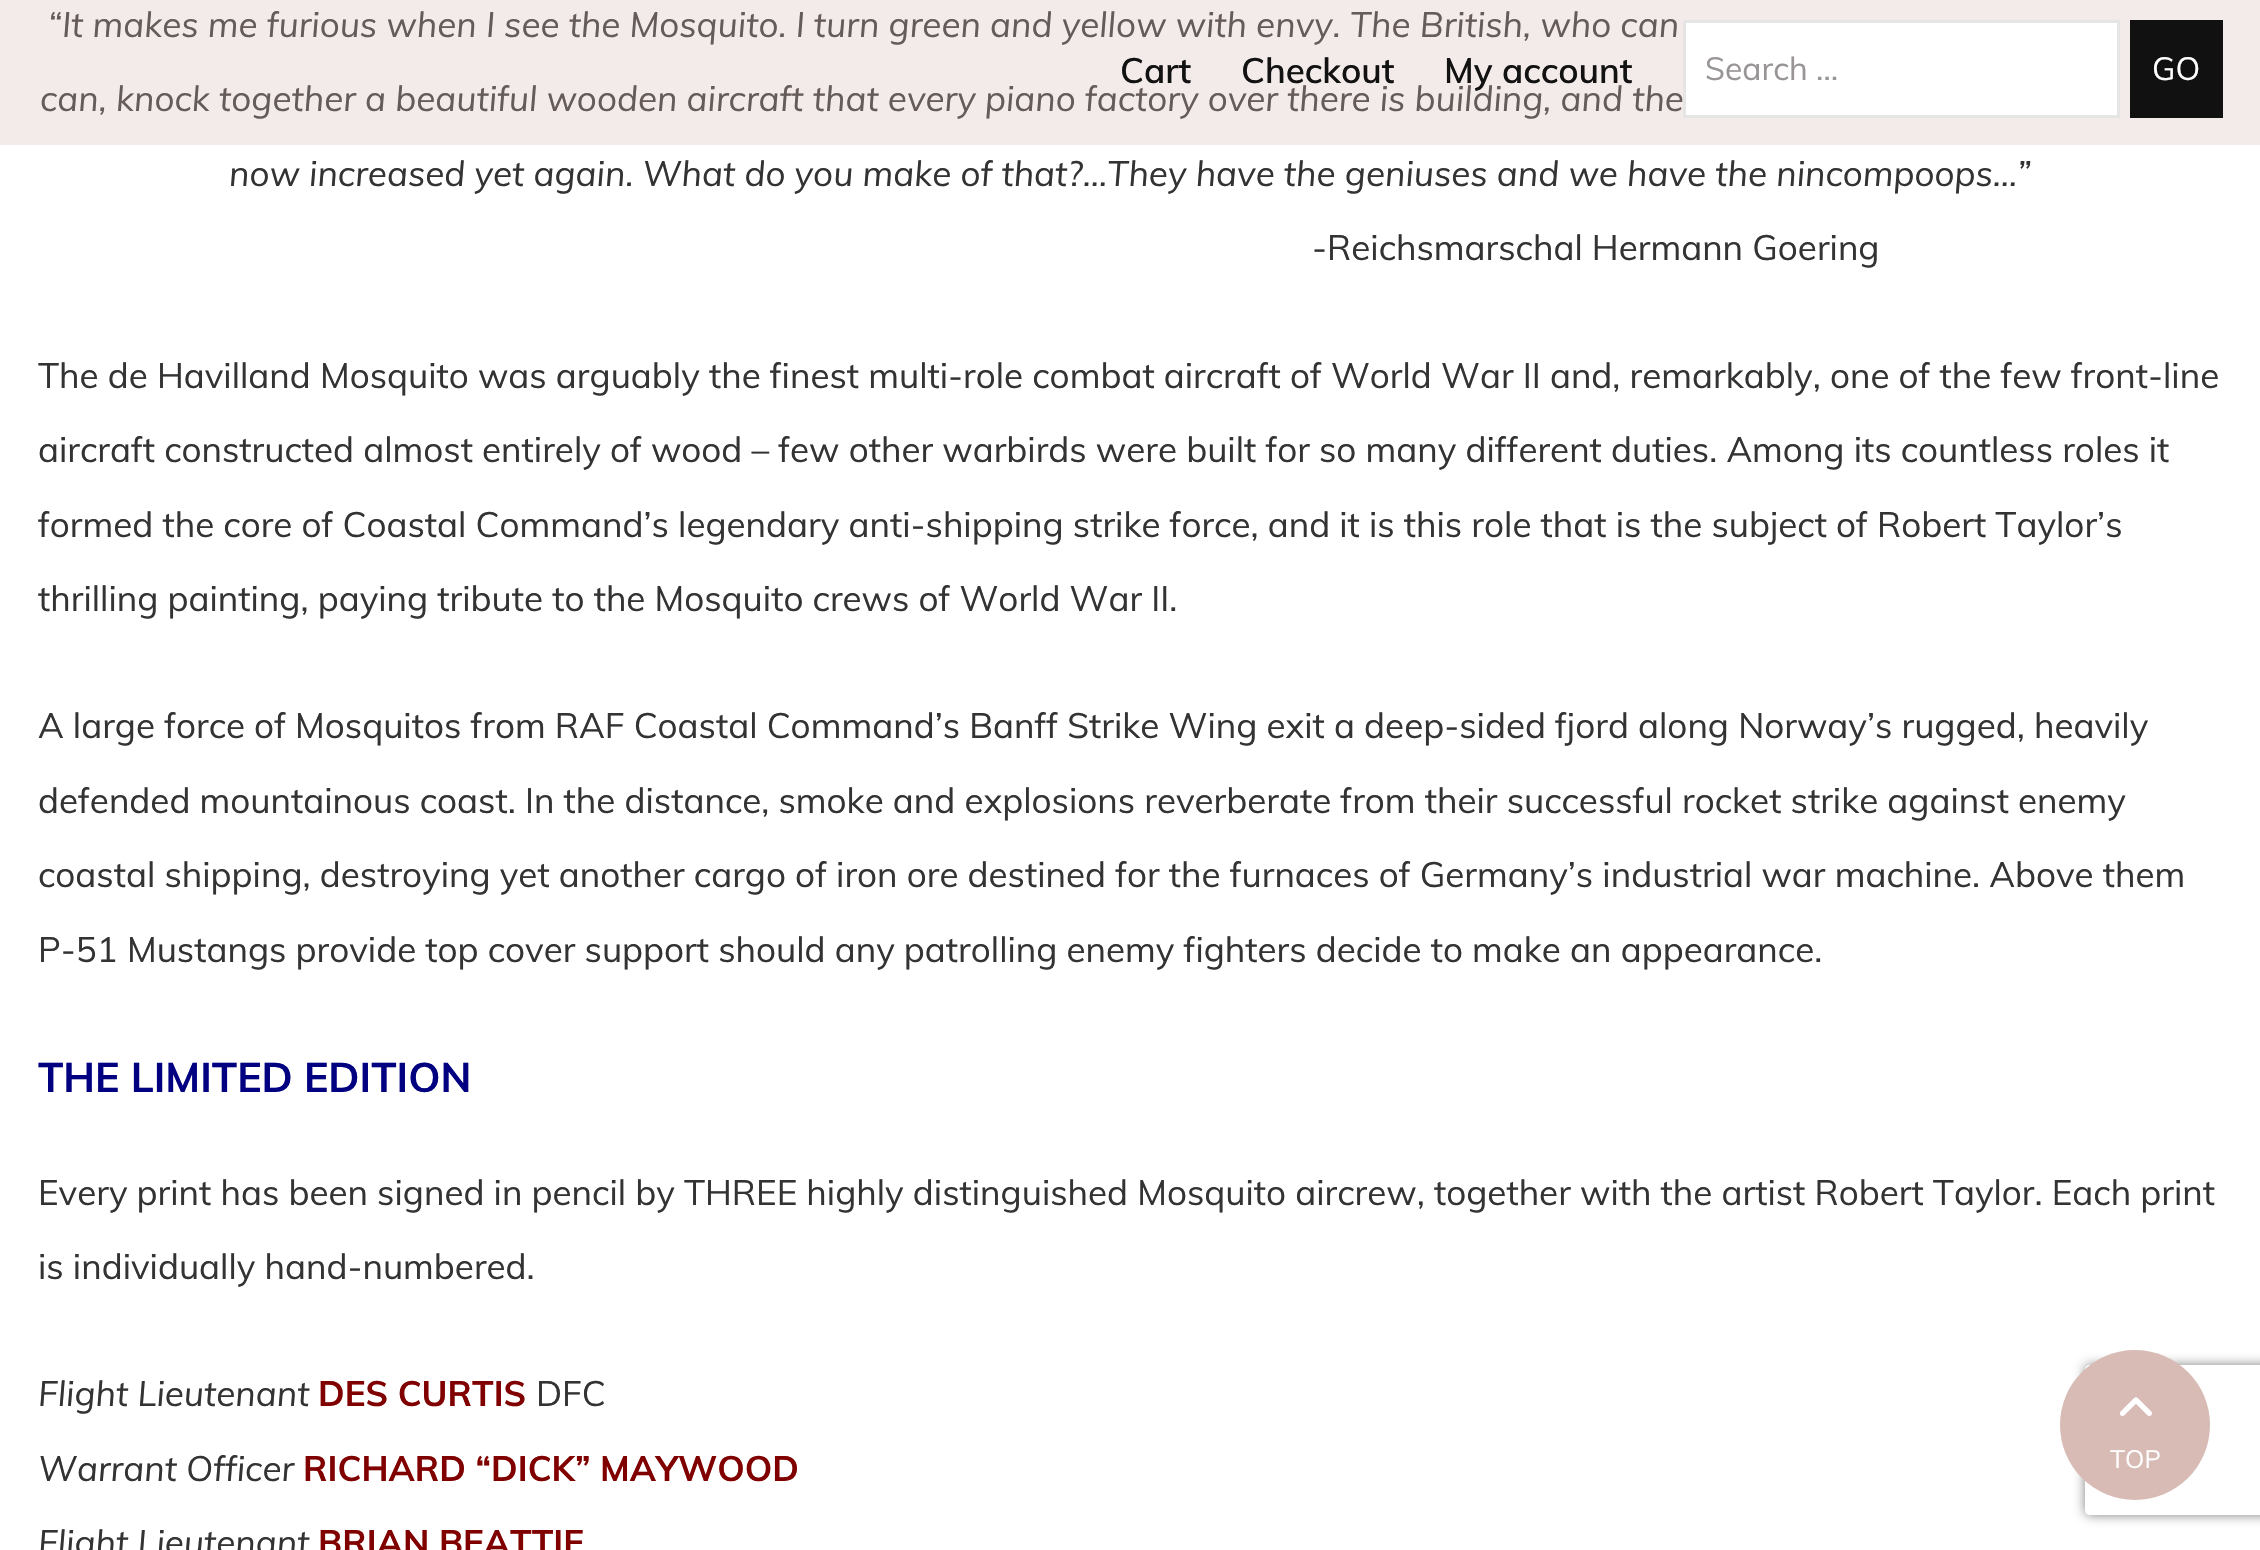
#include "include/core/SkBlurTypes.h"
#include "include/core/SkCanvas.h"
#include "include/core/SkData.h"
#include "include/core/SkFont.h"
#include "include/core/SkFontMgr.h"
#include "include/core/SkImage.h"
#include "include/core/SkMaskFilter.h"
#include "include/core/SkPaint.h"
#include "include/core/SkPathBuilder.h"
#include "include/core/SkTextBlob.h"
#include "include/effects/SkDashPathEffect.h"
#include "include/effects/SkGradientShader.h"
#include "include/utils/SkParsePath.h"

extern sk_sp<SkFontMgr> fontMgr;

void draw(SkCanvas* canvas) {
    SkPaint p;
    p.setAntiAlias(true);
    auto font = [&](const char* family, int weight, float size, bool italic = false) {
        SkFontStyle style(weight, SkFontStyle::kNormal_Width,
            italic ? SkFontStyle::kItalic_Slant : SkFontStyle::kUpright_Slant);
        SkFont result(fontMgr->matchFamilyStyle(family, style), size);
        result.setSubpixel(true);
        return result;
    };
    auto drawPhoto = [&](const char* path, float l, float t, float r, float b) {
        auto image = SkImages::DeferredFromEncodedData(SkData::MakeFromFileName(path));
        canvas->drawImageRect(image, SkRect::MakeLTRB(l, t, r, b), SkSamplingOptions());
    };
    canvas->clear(0xFFFFFFFF);
    p.setColor(0xFFF3EBE9);
    canvas->drawRect(SkRect::MakeLTRB(0, 0, 2260, 145), p);
    auto font1 = font("Muli", 400, 35, true);
    p.setColor(0xFF655C5A);
    canvas->drawString("“It makes me furious when I see the Mosquito. I turn green and yellow with envy. The British, who can", 48, 37, font1, p);
    canvas->drawString("can, knock together a beautiful wooden aircraft that every piano factory over there is building, and the", 40, 111, font1, p);
    p.setColor(0xFF333333);
    canvas->drawString("now increased yet again. What do you make of that?…They have the geniuses and we have the nincompoops…”", 229, 186, font1, p);
    auto font2 = font("Muli", 400, 35);
    {
        const struct { const char* s; float x, y; } items[] = {
            {"-Reichsmarschal Hermann Goering", 1312, 260},
            {"The de Havilland Mosquito was arguably the finest multi-role combat aircraft of World War II and, remarkably, one of the few front-line", 38, 388},
            {"aircraft constructed almost entirely of wood – few other warbirds were built for so many different duties. Among its countless roles it", 38, 462},
            {"formed the core of Coastal Command’s legendary anti-shipping strike force, and it is this role that is the subject of Robert Taylor’s", 38, 537},
            {"thrilling painting, paying tribute to the Mosquito crews of World War II.", 38, 611},
            {"A large force of Mosquitos from RAF Coastal Command’s Banff Strike Wing exit a deep-sided fjord along Norway’s rugged, heavily", 38, 738},
            {"defended mountainous coast. In the distance, smoke and explosions reverberate from their successful rocket strike against enemy", 38, 813},
            {"coastal shipping, destroying yet another cargo of iron ore destined for the furnaces of Germany’s industrial war machine. Above them", 38, 887},
            {"P-51 Mustangs provide top cover support should any patrolling enemy fighters decide to make an appearance.", 38, 962},
        };
        for (auto [s, x, y] : items) {
            canvas->drawString(s, x, y, font2, p);
        }
    }
    auto font3 = font("Muli", 700, 41);
    p.setColor(0xFF000080);
    canvas->drawString("THE LIMITED EDITION", 38, 1092, font3, p);
    p.setColor(0xFF333333);
    canvas->drawString("Every print has been signed in pencil by THREE highly distinguished Mosquito aircrew, together with the artist Robert Taylor. Each print", 38, 1205, font2, p);
    canvas->drawString("is individually hand-numbered.", 38, 1279, font2, p);
    canvas->drawString("Flight Lieutenant", 38, 1406, font1, p);
    auto font4 = font("Muli", 700, 35);
    p.setColor(0xFF800000);
    canvas->drawString("DES CURTIS", 318, 1406, font4, p);
    p.setColor(0xFF333333);
    canvas->drawString("DFC", 536, 1406, font2, p);
    canvas->drawString("Warrant Officer", 38, 1481, font1, p);
    p.setColor(0xFF800000);
    canvas->drawString("RICHARD “DICK” MAYWOOD", 303, 1481, font4, p);
    p.setColor(0xFF333333);
    canvas->drawString("Flight Lieutenant", 38, 1555, font1, p);
    p.setColor(0xFF800000);
    canvas->drawString("BRIAN BEATTIE", 318, 1555, font4, p);
    auto font5 = font("Muli", 600, 35);
    p.setColor(0xFF121212);
    {
        const struct { const char* s; float x, y; } items[] = {
            {"Cart", 1120, 83},
            {"Checkout", 1241, 83},
            {"My account", 1444, 83},
        };
        for (auto [s, x, y] : items) {
            canvas->drawString(s, x, y, font5, p);
        }
    }
    p.setColor(0xFFFFFFFF);
    canvas->drawRect(SkRect::MakeLTRB(1684.5f, 21.5f, 2118.5f, 116.5f), p);
    p.setStyle(SkPaint::kStroke_Style);
    p.setStrokeWidth(3);
    p.setColor(0xFFE5E5E5);
    canvas->drawRect(SkRect::MakeLTRB(1684.5f, 21.5f, 2118.5f, 116.5f), p);
    auto font6 = font("Muli", 400, 32);
    p.setStyle(SkPaint::kFill_Style);
    p.setColor(0xFF999596);
    canvas->drawString("Search …", 1705, 80, font6, p);
    p.setColor(0xFF111111);
    canvas->drawRect(SkRect::MakeLTRB(2130, 20, 2223, 118), p);
    p.setColor(0xFFFFFFFF);
    canvas->drawString("GO", 2152, 80, font6, p);
    canvas->save();
    canvas->clipPath(SkPathBuilder(SkPathFillType::kEvenOdd).moveTo(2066, 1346).lineTo(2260, 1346).lineTo(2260, 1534).lineTo(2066, 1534).close().moveTo(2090, 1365).lineTo(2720, 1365).cubicTo(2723, 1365, 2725, 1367, 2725, 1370).lineTo(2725, 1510).cubicTo(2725, 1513, 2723, 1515, 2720, 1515).lineTo(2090, 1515).cubicTo(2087, 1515, 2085, 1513, 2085, 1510).lineTo(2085, 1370).cubicTo(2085, 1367, 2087, 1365, 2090, 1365).close().detach(), true);
    p.setColor(0xFF808080);
    p.setMaskFilter(SkMaskFilter::MakeBlur(kNormal_SkBlurStyle, 6));
    canvas->drawRoundRect(SkRect::MakeLTRB(2085, 1365, 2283, 1515), 5, 5, p);
    p.setMaskFilter(nullptr);
    canvas->restore();
    p.setColor(0xFFD8BBB5);
    canvas->drawCircle(2135, 1425, 75, p);
    drawPhoto("media/1.png", 2119, 1397, 2152, 1416);
    auto font7 = font("Muli", 400, 25);
    p.setColor(0xFFFFFFFF);
    canvas->drawString("TOP", 2110, 1468, font7, p);
}
